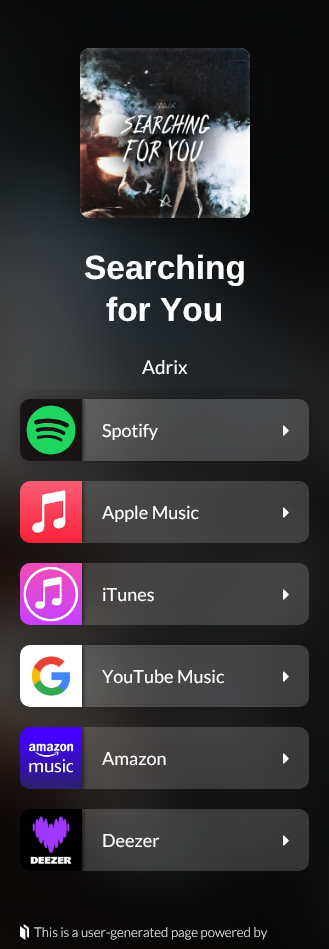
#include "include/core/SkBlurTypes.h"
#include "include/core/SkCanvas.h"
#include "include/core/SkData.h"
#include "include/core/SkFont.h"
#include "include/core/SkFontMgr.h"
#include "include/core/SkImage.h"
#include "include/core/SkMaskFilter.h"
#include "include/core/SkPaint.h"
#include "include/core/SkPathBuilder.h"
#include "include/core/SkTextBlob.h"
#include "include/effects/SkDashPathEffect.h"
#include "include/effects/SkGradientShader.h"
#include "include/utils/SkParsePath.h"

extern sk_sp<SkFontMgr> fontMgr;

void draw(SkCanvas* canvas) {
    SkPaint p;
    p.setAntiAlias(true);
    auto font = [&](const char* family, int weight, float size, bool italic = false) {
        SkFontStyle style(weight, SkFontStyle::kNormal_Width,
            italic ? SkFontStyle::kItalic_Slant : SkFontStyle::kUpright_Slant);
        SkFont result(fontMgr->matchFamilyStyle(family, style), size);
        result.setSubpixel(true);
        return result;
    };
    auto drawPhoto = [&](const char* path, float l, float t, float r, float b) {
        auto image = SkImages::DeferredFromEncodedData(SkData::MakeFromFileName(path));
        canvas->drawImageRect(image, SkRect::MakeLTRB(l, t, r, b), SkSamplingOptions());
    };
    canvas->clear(0xFF000000);
    drawPhoto("media/1.png", 0, 0, 329, 949);
    p.setColor(0x59000000);
    p.setMaskFilter(SkMaskFilter::MakeBlur(kNormal_SkBlurStyle, 12.5f));
    canvas->drawRoundRect(SkRect::MakeLTRB(80, 48, 250, 218), 10, 10, p);
    p.setMaskFilter(nullptr);
    p.setColor(0xFFCCCCCC);
    canvas->drawRoundRect(SkRect::MakeLTRB(80, 48, 250, 218), 10, 10, p);
    drawPhoto("media/2.png", 80, 48, 250, 218);
    auto font1 = font("Liberation Sans", 700, 33.5f);
    p.setColor(0xFFFFFFFF);
    canvas->drawString("Searching", 84, 279, font1, p);
    canvas->drawString("for You", 106, 321, font1, p);
    canvas->save();
    canvas->clipRect(SkRect::MakeLTRB(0, 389, 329, 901));
    canvas->clipPath(SkPathBuilder(SkPathFillType::kEvenOdd).moveTo(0, 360).lineTo(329, 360).lineTo(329, 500).lineTo(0, 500).close().moveTo(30, 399).lineTo(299, 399).cubicTo(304.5f, 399, 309, 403.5f, 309, 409).lineTo(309, 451).cubicTo(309, 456.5f, 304.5f, 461, 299, 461).lineTo(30, 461).cubicTo(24.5f, 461, 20, 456.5f, 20, 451).lineTo(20, 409).cubicTo(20, 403.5f, 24.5f, 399, 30, 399).close().detach(), true);
    p.setColor(0x59000000);
    p.setMaskFilter(SkMaskFilter::MakeBlur(kNormal_SkBlurStyle, 12.5f));
    canvas->drawRoundRect(SkRect::MakeLTRB(20, 399, 309, 461), 10, 10, p);
    p.setMaskFilter(nullptr);
    canvas->restore();
    auto font2 = font("Lato", 400, 19);
    p.setColor(0xFFFFFFFF);
    canvas->drawString("Adrix", 142, 374, font2, p);
    p.setColor(0x2BFFFFFF);
    canvas->drawRoundRect(SkRect::MakeLTRB(20, 399, 309, 461), 10, 10, p);
    canvas->save();
    canvas->clipPath(SkPathBuilder().moveTo(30, 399).lineTo(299, 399).cubicTo(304.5f, 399, 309, 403.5f, 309, 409).lineTo(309, 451).cubicTo(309, 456.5f, 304.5f, 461, 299, 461).lineTo(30, 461).cubicTo(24.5f, 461, 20, 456.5f, 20, 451).lineTo(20, 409).cubicTo(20, 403.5f, 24.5f, 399, 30, 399).close().detach(), true);
    p.setColor(0xFF000000);
    p.setMaskFilter(SkMaskFilter::MakeBlur(kNormal_SkBlurStyle, 2.5f));
    canvas->drawRect(SkRect::MakeLTRB(20, 399, 82, 461), p);
    p.setMaskFilter(nullptr);
    canvas->restore();
    drawPhoto("media/3.png", 20, 399, 82, 461);
    auto font3 = font("Lato", 400, 18);
    p.setColor(0xFFFFFFFF);
    canvas->drawString("Spotify", 102, 437, font3, p);
    drawPhoto("media/4.png", 283, 425, 289, 436);
    p.setColor(0x2BFFFFFF);
    canvas->drawRoundRect(SkRect::MakeLTRB(20, 481, 309, 543), 10, 10, p);
    canvas->save();
    canvas->clipPath(SkPathBuilder().moveTo(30, 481).lineTo(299, 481).cubicTo(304.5f, 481, 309, 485.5f, 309, 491).lineTo(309, 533).cubicTo(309, 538.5f, 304.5f, 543, 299, 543).lineTo(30, 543).cubicTo(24.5f, 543, 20, 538.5f, 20, 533).lineTo(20, 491).cubicTo(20, 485.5f, 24.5f, 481, 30, 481).close().detach(), true);
    p.setColor(0xFF000000);
    p.setMaskFilter(SkMaskFilter::MakeBlur(kNormal_SkBlurStyle, 2.5f));
    canvas->drawRect(SkRect::MakeLTRB(20, 481, 82, 543), p);
    p.setMaskFilter(nullptr);
    canvas->restore();
    drawPhoto("media/5.png", 20, 481, 82, 543);
    p.setColor(0xFFFFFFFF);
    canvas->drawString("Apple Music", 102, 519, font3, p);
    drawPhoto("media/6.png", 283, 507, 289, 518);
    p.setColor(0x2BFFFFFF);
    canvas->drawRoundRect(SkRect::MakeLTRB(20, 563, 309, 625), 10, 10, p);
    canvas->save();
    canvas->clipPath(SkPathBuilder().moveTo(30, 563).lineTo(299, 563).cubicTo(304.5f, 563, 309, 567.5f, 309, 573).lineTo(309, 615).cubicTo(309, 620.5f, 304.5f, 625, 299, 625).lineTo(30, 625).cubicTo(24.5f, 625, 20, 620.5f, 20, 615).lineTo(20, 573).cubicTo(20, 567.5f, 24.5f, 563, 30, 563).close().detach(), true);
    p.setColor(0xFF000000);
    p.setMaskFilter(SkMaskFilter::MakeBlur(kNormal_SkBlurStyle, 2.5f));
    canvas->drawRect(SkRect::MakeLTRB(20, 563, 82, 625), p);
    p.setMaskFilter(nullptr);
    canvas->restore();
    drawPhoto("media/7.png", 20, 563, 82, 625);
    p.setColor(0xFFFFFFFF);
    canvas->drawString("iTunes", 102, 601, font3, p);
    drawPhoto("media/8.png", 283, 589, 289, 600);
    canvas->save();
    canvas->clipPath(SkPathBuilder(SkPathFillType::kEvenOdd).moveTo(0, 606).lineTo(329, 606).lineTo(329, 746).lineTo(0, 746).close().moveTo(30, 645).lineTo(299, 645).cubicTo(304.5f, 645, 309, 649.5f, 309, 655).lineTo(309, 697).cubicTo(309, 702.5f, 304.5f, 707, 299, 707).lineTo(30, 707).cubicTo(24.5f, 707, 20, 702.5f, 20, 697).lineTo(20, 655).cubicTo(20, 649.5f, 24.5f, 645, 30, 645).close().detach(), true);
    p.setColor(0x59000000);
    p.setMaskFilter(SkMaskFilter::MakeBlur(kNormal_SkBlurStyle, 12.5f));
    canvas->drawRoundRect(SkRect::MakeLTRB(20, 645, 309, 707), 10, 10, p);
    p.setMaskFilter(nullptr);
    canvas->restore();
    p.setColor(0x2BFFFFFF);
    canvas->drawRoundRect(SkRect::MakeLTRB(20, 645, 309, 707), 10, 10, p);
    canvas->save();
    canvas->clipPath(SkPathBuilder().moveTo(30, 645).lineTo(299, 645).cubicTo(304.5f, 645, 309, 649.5f, 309, 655).lineTo(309, 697).cubicTo(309, 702.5f, 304.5f, 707, 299, 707).lineTo(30, 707).cubicTo(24.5f, 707, 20, 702.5f, 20, 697).lineTo(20, 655).cubicTo(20, 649.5f, 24.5f, 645, 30, 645).close().detach(), true);
    p.setColor(0xFF000000);
    p.setMaskFilter(SkMaskFilter::MakeBlur(kNormal_SkBlurStyle, 2.5f));
    canvas->drawRect(SkRect::MakeLTRB(20, 645, 82, 707), p);
    p.setMaskFilter(nullptr);
    canvas->restore();
    drawPhoto("media/9.png", 20, 645, 82, 707);
    p.setColor(0xFFFFFFFF);
    canvas->drawString("YouTube Music", 102, 683, font3, p);
    drawPhoto("media/10.png", 283, 671, 289, 682);
    p.setColor(0x2BFFFFFF);
    canvas->drawRoundRect(SkRect::MakeLTRB(20, 727, 309, 789), 10, 10, p);
    canvas->save();
    canvas->clipPath(SkPathBuilder().moveTo(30, 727).lineTo(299, 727).cubicTo(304.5f, 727, 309, 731.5f, 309, 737).lineTo(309, 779).cubicTo(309, 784.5f, 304.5f, 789, 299, 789).lineTo(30, 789).cubicTo(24.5f, 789, 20, 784.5f, 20, 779).lineTo(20, 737).cubicTo(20, 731.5f, 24.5f, 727, 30, 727).close().detach(), true);
    p.setColor(0xFF000000);
    p.setMaskFilter(SkMaskFilter::MakeBlur(kNormal_SkBlurStyle, 2.5f));
    canvas->drawRect(SkRect::MakeLTRB(20, 727, 82, 789), p);
    p.setMaskFilter(nullptr);
    canvas->restore();
    drawPhoto("media/11.png", 20, 727, 82, 789);
    p.setColor(0xFFFFFFFF);
    canvas->drawString("Amazon", 102, 765, font3, p);
    drawPhoto("media/12.png", 283, 753, 289, 764);
    p.setColor(0x2BFFFFFF);
    canvas->drawRoundRect(SkRect::MakeLTRB(20, 809, 309, 871), 10, 10, p);
    canvas->save();
    canvas->clipPath(SkPathBuilder().moveTo(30, 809).lineTo(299, 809).cubicTo(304.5f, 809, 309, 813.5f, 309, 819).lineTo(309, 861).cubicTo(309, 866.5f, 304.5f, 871, 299, 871).lineTo(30, 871).cubicTo(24.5f, 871, 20, 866.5f, 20, 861).lineTo(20, 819).cubicTo(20, 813.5f, 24.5f, 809, 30, 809).close().detach(), true);
    p.setColor(0xFF000000);
    p.setMaskFilter(SkMaskFilter::MakeBlur(kNormal_SkBlurStyle, 2.5f));
    canvas->drawRect(SkRect::MakeLTRB(20, 809, 82, 871), p);
    p.setMaskFilter(nullptr);
    canvas->restore();
    drawPhoto("media/13.png", 20, 809, 82, 871);
    p.setColor(0xFFFFFFFF);
    canvas->drawString("Deezer", 102, 847, font3, p);
    drawPhoto("media/14.png", 283, 835, 289, 846);
    drawPhoto("media/15.png", 20, 924, 29, 940);
    auto font4 = font("Lato", 300, 13.3f);
    canvas->drawString("This is a user-generated page powered by", 34, 937, font4, p);
}
